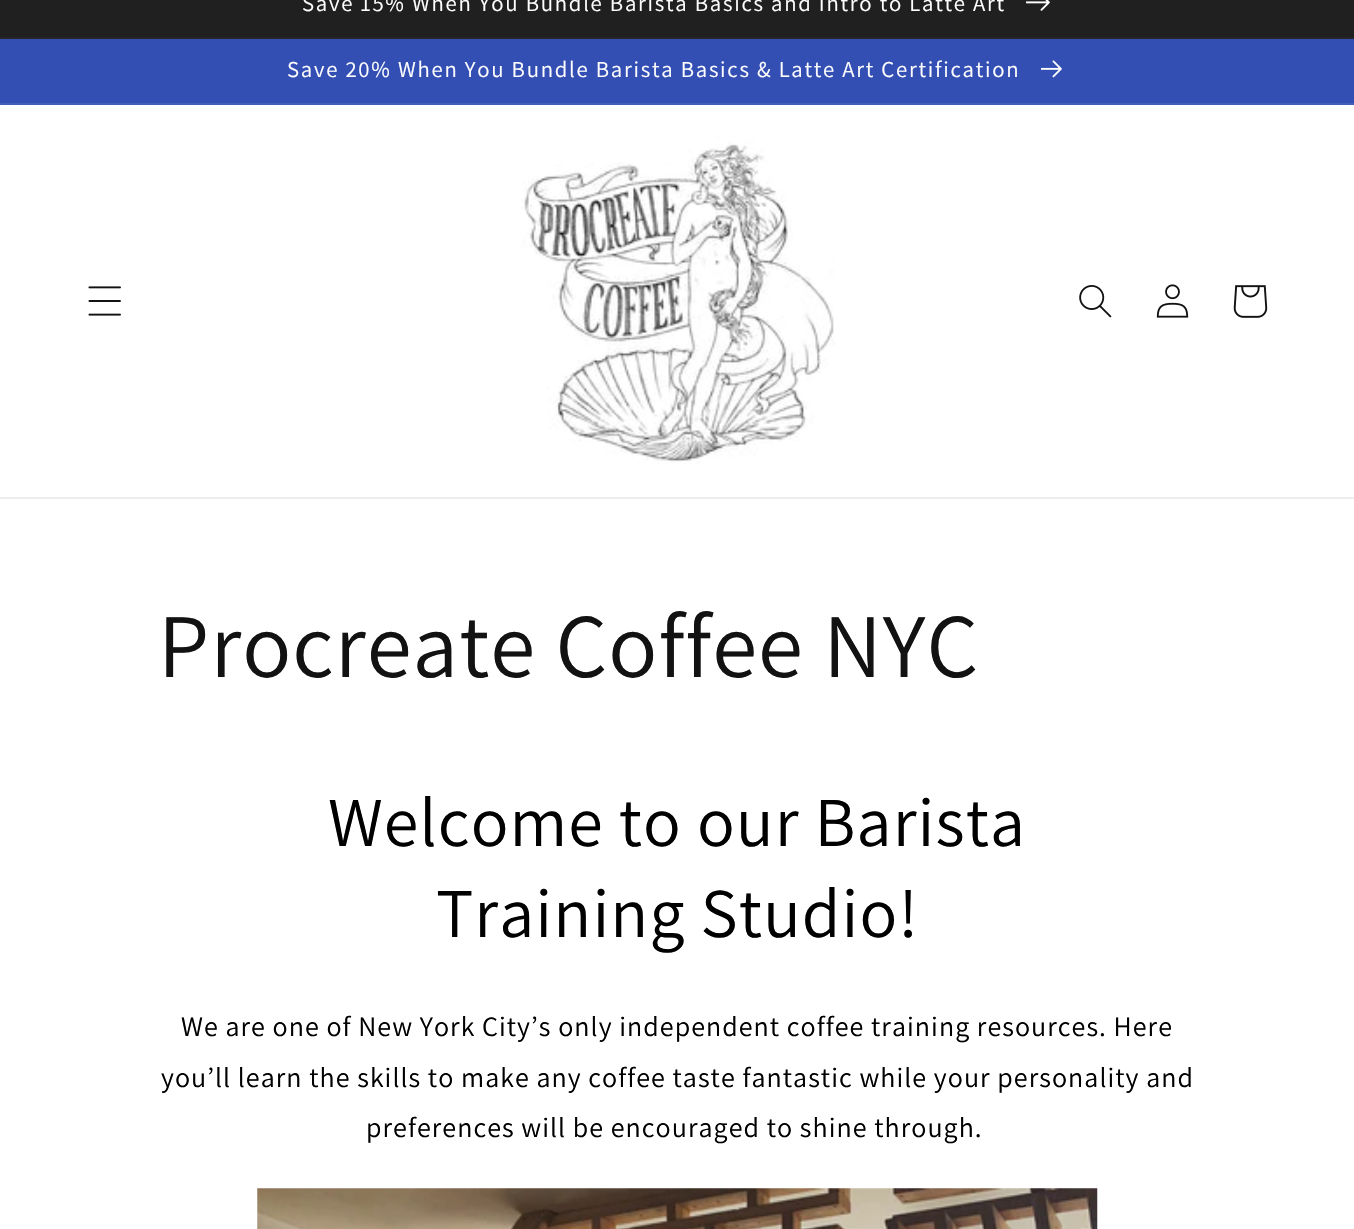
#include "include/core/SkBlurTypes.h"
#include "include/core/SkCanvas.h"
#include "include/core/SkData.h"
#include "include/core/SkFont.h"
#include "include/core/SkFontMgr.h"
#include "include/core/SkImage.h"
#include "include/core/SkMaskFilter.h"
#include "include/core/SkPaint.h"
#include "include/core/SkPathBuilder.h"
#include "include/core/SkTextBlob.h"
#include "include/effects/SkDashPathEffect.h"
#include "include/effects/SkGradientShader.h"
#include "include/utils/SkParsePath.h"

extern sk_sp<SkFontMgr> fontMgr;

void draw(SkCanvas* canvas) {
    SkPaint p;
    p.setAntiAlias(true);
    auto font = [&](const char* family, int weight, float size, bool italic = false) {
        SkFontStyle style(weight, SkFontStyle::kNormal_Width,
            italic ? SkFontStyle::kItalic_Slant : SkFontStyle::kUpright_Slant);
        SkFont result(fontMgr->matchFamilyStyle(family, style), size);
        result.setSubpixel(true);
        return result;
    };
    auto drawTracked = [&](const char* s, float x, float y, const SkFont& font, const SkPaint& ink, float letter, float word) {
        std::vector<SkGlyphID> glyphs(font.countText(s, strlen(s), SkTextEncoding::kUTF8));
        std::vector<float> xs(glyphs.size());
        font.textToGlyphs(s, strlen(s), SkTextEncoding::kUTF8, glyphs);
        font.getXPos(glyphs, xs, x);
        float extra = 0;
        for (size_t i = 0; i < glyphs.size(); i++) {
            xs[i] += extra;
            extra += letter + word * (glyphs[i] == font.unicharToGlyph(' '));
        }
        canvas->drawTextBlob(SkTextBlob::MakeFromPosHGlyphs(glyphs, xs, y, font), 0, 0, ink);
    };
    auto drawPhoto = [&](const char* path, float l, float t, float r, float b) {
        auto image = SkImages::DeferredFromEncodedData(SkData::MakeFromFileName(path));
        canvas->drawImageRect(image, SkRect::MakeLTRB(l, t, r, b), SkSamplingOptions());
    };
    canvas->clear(0xFFFFFFFF);
    p.setColor(0xFF252525);
    canvas->drawRect(SkRect::MakeLTRB(0, 37, 1354, 39), p);
    p.setColor(0xFF202020);
    canvas->drawRect(SkRect::MakeLTRB(0, 0, 1354, 37), p);
    auto font1 = font("Assistant", 400, 22.75f);
    p.setColor(0xFFFFFFFF);
    drawTracked("Save 15% When You Bundle Barista Basics and Intro to Latte Art", 302, 11, font1, p, 1.75f, 0);
    drawPhoto("media/1.png", 1026, 0, 1050, 11);
    p.setColor(0xFF334FB4);
    canvas->drawRect(SkRect::MakeLTRB(0, 39, 1354, 103), p);
    p.setColor(0xFF435DBA);
    canvas->drawRect(SkRect::MakeLTRB(0, 103, 1354, 105), p);
    p.setColor(0xFFFFFFFF);
    drawTracked("Save 20% When You Bundle Barista Basics & Latte Art Certification", 287, 77, font1, p, 1.75f, 0);
    drawPhoto("media/2.png", 1041, 60, 1062, 78);
    p.setColor(0xFFECECEC);
    canvas->drawRect(SkRect::MakeLTRB(0, 497, 1354, 499), p);
    drawPhoto("media/3.png", 88, 286, 121, 316);
    drawPhoto("media/4.png", 521, 137, 835, 464);
    drawPhoto("media/5.png", 1079, 285, 1112, 318);
    drawPhoto("media/6.png", 1156, 284, 1189, 318);
    drawPhoto("media/7.png", 1233, 285, 1268, 318);
    auto font2 = font("Assistant", 400, 91);
    p.setColor(0xFF121212);
    drawTracked("Procreate Coffee NYC", 158, 677, font2, p, 1.05f, 0);
    auto font3 = font("Assistant", 400, 70);
    p.setColor(0xFF000000);
    drawTracked("Welcome to our Barista", 328, 846, font3, p, 1.05f, 0);
    drawTracked("Training Studio!", 436, 937, font3, p, 1.05f, 0);
    auto font4 = font("Assistant", 400, 28);
    {
        const struct { const char* s; float x, y; } items[] = {
            {"We are one of New York City’s only independent coffee training resources. Here", 181, 1036},
            {"you’ll learn the skills to make any coffee taste fantastic while your personality and", 161, 1087},
            {"preferences will be encouraged to shine through.", 366, 1137},
        };
        for (auto [s, x, y] : items) {
            drawTracked(s, x, y, font4, p, 1.05f, 0);
        }
    }
    drawPhoto("media/8.png", 257, 1188, 1098, 1229);
}
